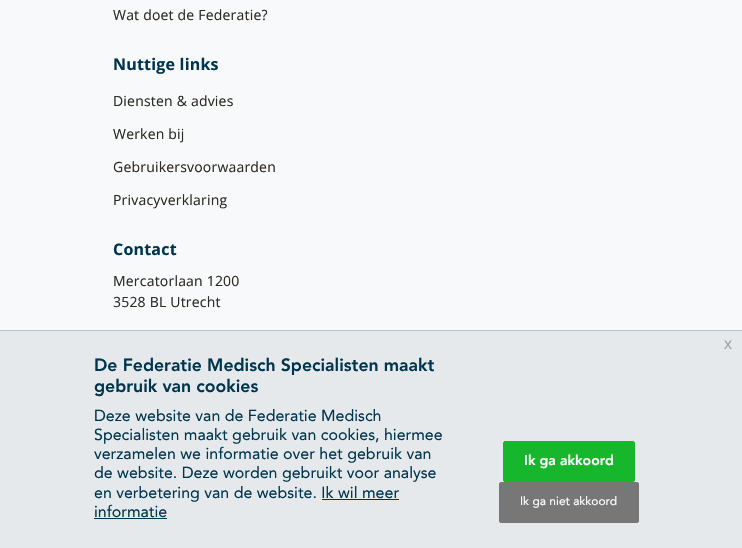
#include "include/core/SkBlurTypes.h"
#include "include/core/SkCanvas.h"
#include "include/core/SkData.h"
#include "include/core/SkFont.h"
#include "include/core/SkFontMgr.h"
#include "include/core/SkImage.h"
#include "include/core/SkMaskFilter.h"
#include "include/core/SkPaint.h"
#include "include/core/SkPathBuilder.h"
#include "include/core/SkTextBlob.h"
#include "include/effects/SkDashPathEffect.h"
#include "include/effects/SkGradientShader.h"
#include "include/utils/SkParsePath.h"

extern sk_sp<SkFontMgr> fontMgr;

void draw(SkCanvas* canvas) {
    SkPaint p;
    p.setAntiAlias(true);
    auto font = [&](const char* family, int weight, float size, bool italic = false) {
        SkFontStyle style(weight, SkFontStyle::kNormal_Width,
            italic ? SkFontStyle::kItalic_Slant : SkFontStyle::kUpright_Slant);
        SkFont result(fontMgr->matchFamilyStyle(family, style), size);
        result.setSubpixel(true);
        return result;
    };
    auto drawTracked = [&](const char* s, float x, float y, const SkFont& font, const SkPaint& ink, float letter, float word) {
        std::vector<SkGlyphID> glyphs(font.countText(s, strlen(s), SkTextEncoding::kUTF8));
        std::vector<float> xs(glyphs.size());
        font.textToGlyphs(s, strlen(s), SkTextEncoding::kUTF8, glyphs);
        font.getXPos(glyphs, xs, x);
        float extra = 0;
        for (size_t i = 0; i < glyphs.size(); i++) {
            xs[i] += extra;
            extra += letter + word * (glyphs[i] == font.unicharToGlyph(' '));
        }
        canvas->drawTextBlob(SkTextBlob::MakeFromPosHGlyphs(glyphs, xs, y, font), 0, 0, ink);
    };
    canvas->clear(0xFFF8F9FA);
    auto font1 = font("Open Sans", 400, 14);
    p.setColor(0xFF2D2A24);
    drawTracked("Wat doet de Federatie?", 113, 20, font1, p, 0.2f, 0);
    auto font2 = font("Open Sans", 700, 16);
    p.setColor(0xFF00354E);
    drawTracked("Nuttige links", 113, 70, font2, p, 0.2f, 0);
    p.setColor(0xFF2D2A24);
    {
        const struct { const char* s; float x, y; } items[] = {
            {"Diensten & advies", 113, 106},
            {"Werken bij", 113, 139},
            {"Gebruikersvoorwaarden", 113, 172},
            {"Privacyverklaring", 113, 205},
        };
        for (auto [s, x, y] : items) {
            drawTracked(s, x, y, font1, p, 0.2f, 0);
        }
    }
    p.setColor(0xFF00354E);
    drawTracked("Contact", 113, 255, font2, p, 0.2f, 0);
    p.setColor(0xFF2D2A24);
    drawTracked("Mercatorlaan 1200", 113, 286, font1, p, 0.2f, 0);
    drawTracked("3528 BL Utrecht", 113, 307, font1, p, 0.2f, 0);
    p.setColor(0xFFE6E9EB);
    canvas->drawRect(SkRect::MakeLTRB(0, 331, 742, 548), p);
    p.setColor(0xFFC0C0C0);
    canvas->drawRect(SkRect::MakeLTRB(0, 330, 742, 331), p);
    auto font3 = font("Liberation Sans", 400, 16);
    p.setColor(0xFFA2A2A2);
    canvas->drawString("x", 724, 349, font3, p);
    auto font4 = font("Avenir", 900, 17.6f);
    p.setColor(0xFF00354E);
    canvas->drawString("De Federatie Medisch Specialisten maakt", 94, 371, font4, p);
    canvas->drawString("gebruik van cookies", 94, 392, font4, p);
    auto font5 = font("Avenir", 400, 16);
    {
        const struct { const char* s; float x, y; } items[] = {
            {"Deze website van de Federatie Medisch", 94, 421},
            {"Specialisten maakt gebruik van cookies, hiermee", 94, 440},
            {"verzamelen we informatie over het gebruik van", 94, 459},
            {"de website. Deze worden gebruikt voor analyse", 94, 478},
            {"en verbetering van de website. Ik wil meer", 94, 498},
            {"informatie", 94, 517},
        };
        for (auto [s, x, y] : items) {
            canvas->drawString(s, x, y, font5, p);
        }
    }
    canvas->drawRect(SkRect::MakeLTRB(322, 499, 399, 500), p);
    canvas->drawRect(SkRect::MakeLTRB(94, 518, 167, 519), p);
    p.setColor(0xFF16B72D);
    canvas->drawRoundRect(SkRect::MakeLTRB(503.5f, 441.5f, 634.5f, 481.5f), 1.5f, 1.5f, p);
    p.setStyle(SkPaint::kStroke_Style);
    p.setStrokeWidth(1);
    canvas->drawRoundRect(SkRect::MakeLTRB(503.5f, 441.5f, 634.5f, 481.5f), 1.5f, 1.5f, p);
    auto font6 = font("Avenir", 900, 14);
    p.setStyle(SkPaint::kFill_Style);
    p.setColor(0xFFFFFFFF);
    canvas->drawString("Ik ga akkoord", 524, 465, font6, p);
    p.setColor(0xFF777777);
    canvas->drawRoundRect(SkRect::MakeLTRB(499.5f, 482.5f, 638.5f, 522.5f), 1.5f, 1.5f, p);
    p.setStyle(SkPaint::kStroke_Style);
    canvas->drawRoundRect(SkRect::MakeLTRB(499.5f, 482.5f, 638.5f, 522.5f), 1.5f, 1.5f, p);
    auto font7 = font("Avenir", 400, 12);
    p.setStyle(SkPaint::kFill_Style);
    p.setColor(0xFFFFFFFF);
    canvas->drawString("Ik ga niet akkoord", 520, 505, font7, p);
}
